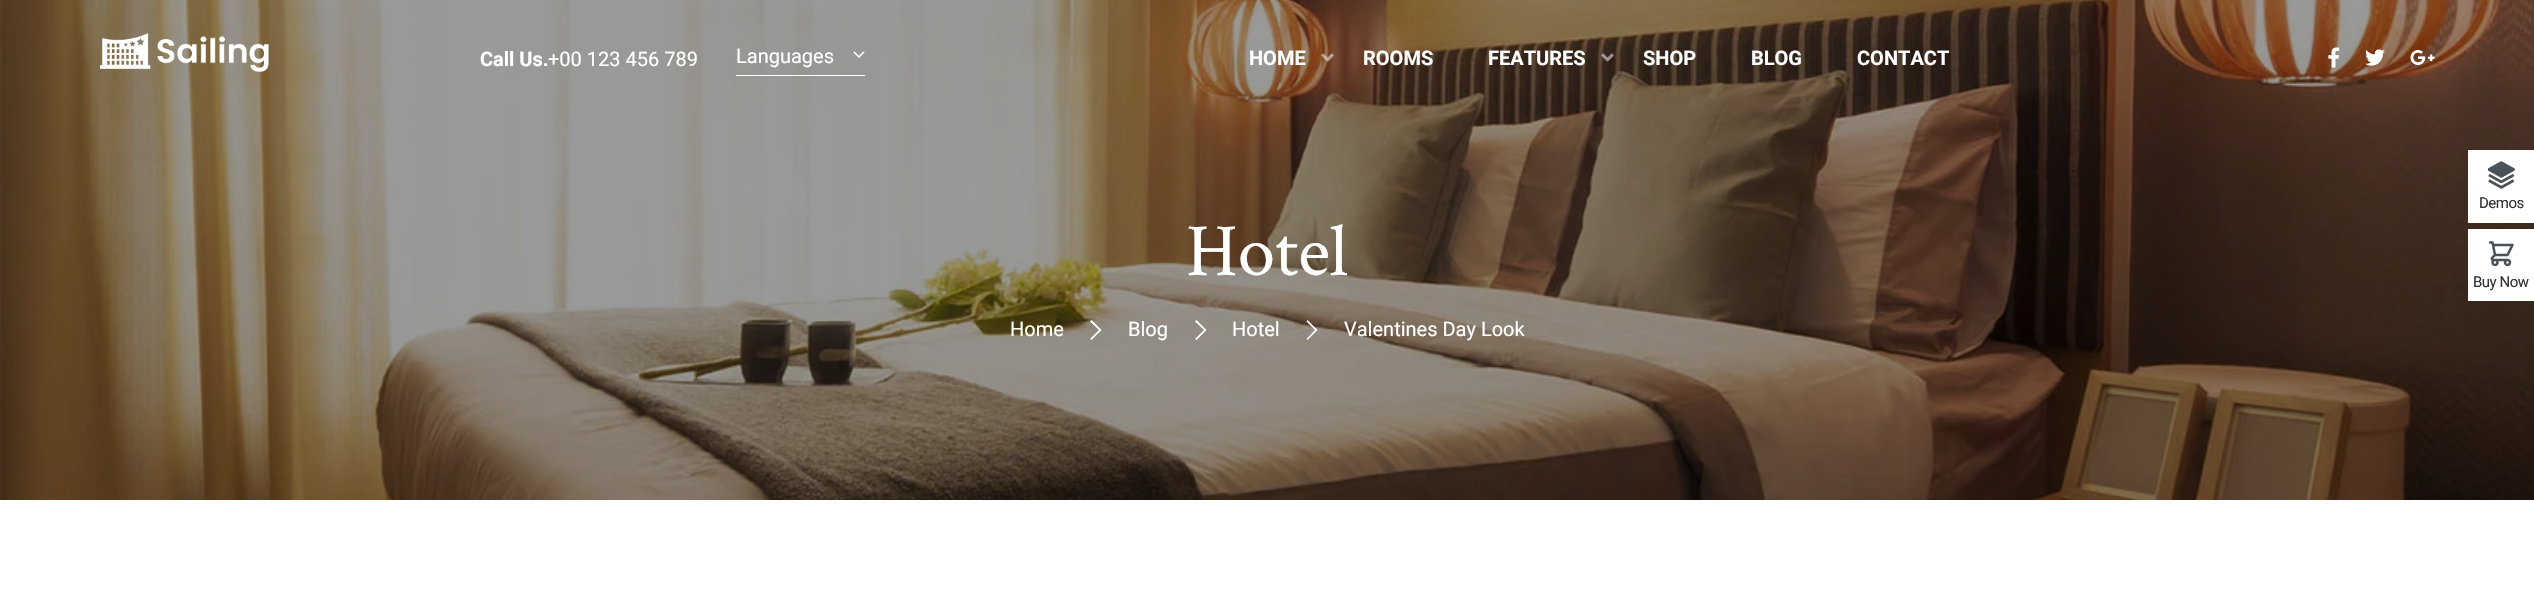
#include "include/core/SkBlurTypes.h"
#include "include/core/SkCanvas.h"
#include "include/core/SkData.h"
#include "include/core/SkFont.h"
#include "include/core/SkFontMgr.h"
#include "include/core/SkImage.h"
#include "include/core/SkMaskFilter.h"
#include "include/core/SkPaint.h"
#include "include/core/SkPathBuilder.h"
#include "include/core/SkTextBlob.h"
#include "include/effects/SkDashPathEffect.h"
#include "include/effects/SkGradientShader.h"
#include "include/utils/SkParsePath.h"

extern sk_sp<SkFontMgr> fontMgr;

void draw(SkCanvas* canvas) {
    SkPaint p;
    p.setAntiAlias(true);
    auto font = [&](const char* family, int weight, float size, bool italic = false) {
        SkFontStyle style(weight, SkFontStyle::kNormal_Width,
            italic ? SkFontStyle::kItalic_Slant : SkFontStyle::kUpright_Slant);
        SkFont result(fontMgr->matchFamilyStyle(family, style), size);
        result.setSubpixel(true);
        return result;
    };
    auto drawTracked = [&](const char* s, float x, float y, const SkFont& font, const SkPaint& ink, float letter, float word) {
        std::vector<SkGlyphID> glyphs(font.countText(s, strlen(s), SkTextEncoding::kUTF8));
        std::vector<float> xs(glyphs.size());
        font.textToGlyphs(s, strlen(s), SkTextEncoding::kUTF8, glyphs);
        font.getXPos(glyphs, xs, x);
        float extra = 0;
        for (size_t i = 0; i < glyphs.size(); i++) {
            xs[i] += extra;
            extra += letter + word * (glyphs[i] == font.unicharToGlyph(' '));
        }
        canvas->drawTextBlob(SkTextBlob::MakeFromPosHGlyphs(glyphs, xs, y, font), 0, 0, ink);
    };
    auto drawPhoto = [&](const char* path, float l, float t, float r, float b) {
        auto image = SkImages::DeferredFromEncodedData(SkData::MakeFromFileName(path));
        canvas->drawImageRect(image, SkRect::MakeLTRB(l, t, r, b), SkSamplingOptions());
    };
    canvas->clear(0xFFFFFFFF);
    drawPhoto("media/8.png", 0, 0, 2534, 500);
    drawPhoto("media/1.png", 100, 33, 269, 72);
    auto font1 = font("Roboto", 700, 20);
    p.setColor(0xFFFFFFFF);
    canvas->drawString("Call Us.", 480, 66, font1, p);
    auto font2 = font("Roboto", 400, 20);
    canvas->drawString("+00 123 456 789", 548, 66, font2, p);
    canvas->drawRect(SkRect::MakeLTRB(736, 75, 865, 76), p);
    canvas->drawString("Languages", 736, 63, font2, p);
    drawPhoto("media/2.png", 853, 51, 865, 58);
    canvas->drawString("HOME", 1249, 65, font1, p);
    drawPhoto("media/3.png", 1321, 53, 1334, 62);
    canvas->drawString("ROOMS", 1363, 65, font1, p);
    canvas->drawString("FEATURES", 1488, 65, font1, p);
    drawPhoto("media/4.png", 1601, 53, 1614, 62);
    {
        const struct { const char* s; float x, y; } items[] = {
            {"SHOP", 1643, 65},
            {"BLOG", 1751, 65},
            {"CONTACT", 1857, 65},
        };
        for (auto [s, x, y] : items) {
            canvas->drawString(s, x, y, font1, p);
        }
    }
    drawPhoto("media/5.png", 2328, 47, 2340, 68);
    drawPhoto("media/6.png", 2365, 49, 2385, 66);
    drawPhoto("media/7.png", 2410, 50, 2435, 65);
    auto font3 = font("Crimson Text", 400, 75);
    canvas->drawString("Hotel", 1186, 275, font3, p);
    canvas->drawString("Home", 1010, 336, font2, p);
    canvas->drawPath(SkPathBuilder().moveTo(1091.5f, 320).lineTo(1090, 321.5f).lineTo(1099, 330).lineTo(1090, 339).lineTo(1091.5f, 340).lineTo(1101.5f, 330).close().detach(), p);
    canvas->drawString("Blog", 1128, 336, font2, p);
    canvas->drawPath(SkPathBuilder().moveTo(1196.5f, 320).lineTo(1195, 321.5f).lineTo(1204, 330).lineTo(1195, 339).lineTo(1196.5f, 340).lineTo(1206.5f, 330).close().detach(), p);
    canvas->drawString("Hotel", 1232, 336, font2, p);
    canvas->drawPath(SkPathBuilder().moveTo(1307.5f, 320).lineTo(1306.5f, 321.5f).lineTo(1315, 330).lineTo(1306.5f, 339).lineTo(1307.5f, 340).lineTo(1317.5f, 330).close().detach(), p);
    canvas->drawString("Valentines Day Look", 1344, 336, font2, p);
    canvas->drawRect(SkRect::MakeLTRB(2468, 150, 2534, 223), p);
    drawPhoto("media/9.png", 2488, 161, 2515, 189);
    auto font4 = font("Roboto", 400, 15);
    p.setColor(0xFF333333);
    drawTracked("Demos", 2479, 208, font4, p, -0.5f, 0);
    p.setColor(0xFFFFFFFF);
    canvas->drawRect(SkRect::MakeLTRB(2468, 229, 2534, 301), p);
    drawPhoto("media/10.png", 2489, 241, 2514, 266);
    p.setColor(0xFF333333);
    drawTracked("Buy Now", 2473, 287, font4, p, -0.5f, 0);
}
